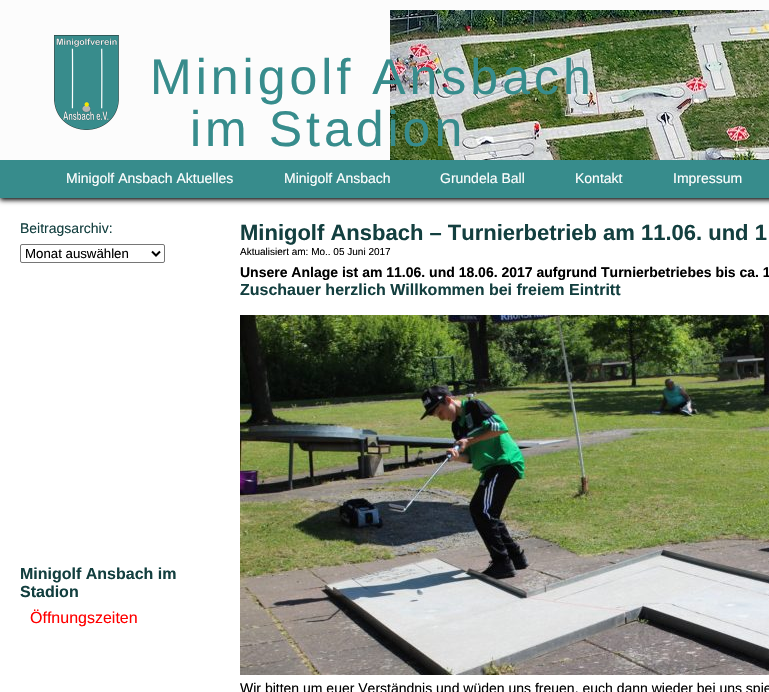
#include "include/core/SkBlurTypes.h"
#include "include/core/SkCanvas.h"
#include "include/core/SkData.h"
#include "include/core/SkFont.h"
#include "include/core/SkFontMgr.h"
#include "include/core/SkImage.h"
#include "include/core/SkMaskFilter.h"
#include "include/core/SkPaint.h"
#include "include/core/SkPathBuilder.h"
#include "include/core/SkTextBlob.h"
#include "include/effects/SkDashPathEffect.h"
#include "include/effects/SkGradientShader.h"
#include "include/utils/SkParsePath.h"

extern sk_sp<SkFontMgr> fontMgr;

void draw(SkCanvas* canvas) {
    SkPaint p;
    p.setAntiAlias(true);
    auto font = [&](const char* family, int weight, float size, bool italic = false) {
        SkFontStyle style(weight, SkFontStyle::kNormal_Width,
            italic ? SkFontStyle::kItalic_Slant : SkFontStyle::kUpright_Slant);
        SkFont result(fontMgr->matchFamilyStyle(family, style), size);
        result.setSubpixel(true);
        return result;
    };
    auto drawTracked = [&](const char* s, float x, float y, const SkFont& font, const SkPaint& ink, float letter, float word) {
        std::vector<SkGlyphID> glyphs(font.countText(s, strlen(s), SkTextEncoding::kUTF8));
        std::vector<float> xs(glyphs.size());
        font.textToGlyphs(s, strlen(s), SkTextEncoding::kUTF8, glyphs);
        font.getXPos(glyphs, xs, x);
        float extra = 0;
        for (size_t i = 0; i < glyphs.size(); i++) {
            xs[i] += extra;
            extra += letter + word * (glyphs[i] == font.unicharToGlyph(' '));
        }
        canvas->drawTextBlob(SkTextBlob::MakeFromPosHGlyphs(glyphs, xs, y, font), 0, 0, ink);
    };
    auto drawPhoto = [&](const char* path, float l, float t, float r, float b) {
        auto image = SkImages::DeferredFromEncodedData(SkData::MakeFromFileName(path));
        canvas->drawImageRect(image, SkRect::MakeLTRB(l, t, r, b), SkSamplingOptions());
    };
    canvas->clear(0xFFFFFFFF);
    p.setColor(0xFF000000);
    p.setMaskFilter(SkMaskFilter::MakeBlur(kNormal_SkBlurStyle, 2.5f));
    canvas->drawRect(SkRect::MakeLTRB(0, 2, 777, 200), p);
    p.setMaskFilter(nullptr);
    p.setColor(0xFFFCFCFC);
    canvas->drawRect(SkRect::MakeLTRB(0, 0, 769, 160), p);
    drawPhoto("media/1.png", 54, 35, 119, 130);
    drawPhoto("media/2.png", 390, 10, 769, 160);
    auto font1 = font("Liberation Sans", 400, 50);
    p.setColor(0xFF378C8C);
    drawTracked("Minigolf Ansbach", 150, 94, font1, p, 4, 0);
    drawTracked("im Stadion", 190, 146, font1, p, 4, 0);
    canvas->drawRect(SkRect::MakeLTRB(0, 160, 769, 198), p);
    auto font2 = font("Liberation Sans", 400, 14);
    p.setColor(0xFFFFFFFF);
    {
        const struct { const char* s; float x, y; } items[] = {
            {"Minigolf Ansbach Aktuelles", 66, 183},
            {"Minigolf Ansbach", 284, 183},
            {"Grundela Ball", 440, 183},
            {"Kontakt", 575, 183},
            {"Impressum", 673, 183},
        };
        for (auto [s, x, y] : items) {
            canvas->drawString(s, x, y, font2, p);
        }
    }
    p.setColor(0xFF133F3F);
    canvas->drawString("Beitragsarchiv:", 20, 233, font2, p);
    p.setStyle(SkPaint::kStroke_Style);
    p.setStrokeWidth(1);
    p.setColor(0xFF767676);
    canvas->drawRoundRect(SkRect::MakeLTRB(20.5f, 244.5f, 164.5f, 262.5f), 1.5f, 1.5f, p);
    p.setStrokeWidth(2);
    p.setColor(0xFF000000);
    canvas->drawPath(SkPathBuilder().moveTo(152, 251.5f).lineTo(156, 255.5f).lineTo(160, 251.5f).detach(), p);
    auto font3 = font("Liberation Sans", 400, 13.25f);
    p.setStyle(SkPaint::kFill_Style);
    canvas->drawString("Monat auswählen", 25, 258, font3, p);
    auto font4 = font("Liberation Sans", 700, 16);
    p.setColor(0xFF133F3F);
    canvas->drawString("Minigolf Ansbach im", 20, 579, font4, p);
    canvas->drawString("Stadion", 20, 597, font4, p);
    auto font5 = font("Liberation Sans", 400, 16);
    p.setColor(0xFFFF0000);
    canvas->drawString("Öffnungszeiten", 30, 623, font5, p);
    auto font6 = font("Liberation Sans", 700, 22);
    p.setColor(0xFF133F3F);
    canvas->drawString("Minigolf Ansbach – Turnierbetrieb am 11.06. und 1", 240, 240, font6, p);
    auto font7 = font("Liberation Sans", 400, 10);
    p.setColor(0xFF000000);
    canvas->drawString("Aktualisiert am: Mo.. 05 Juni 2017", 240, 255, font7, p);
    auto font8 = font("Liberation Sans", 700, 14);
    canvas->drawString("Unsere Anlage ist am 11.06. und 18.06. 2017 aufgrund Turnierbetriebes bis ca. 1", 240, 277, font8, p);
    p.setColor(0xFF133F3F);
    canvas->drawString("Zuschauer herzlich Willkommen bei freiem Eintritt", 240, 295, font4, p);
    drawPhoto("media/3.png", 240, 315, 769, 675);
    p.setColor(0xFF000000);
    canvas->drawString("Wir bitten um euer Verständnis und wüden uns freuen, euch dann wieder bei uns spie", 240, 693, font2, p);
}
